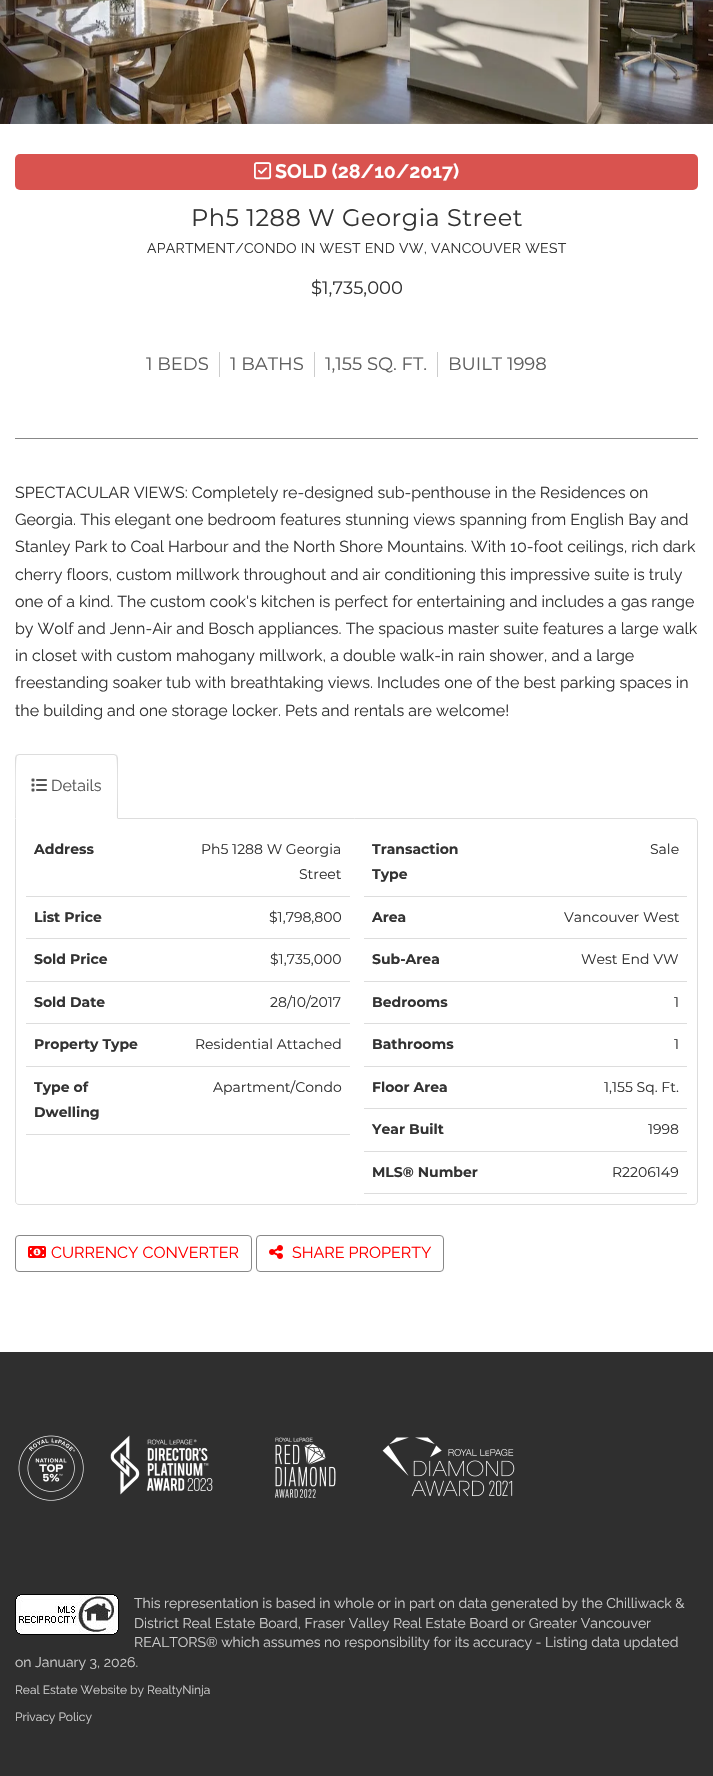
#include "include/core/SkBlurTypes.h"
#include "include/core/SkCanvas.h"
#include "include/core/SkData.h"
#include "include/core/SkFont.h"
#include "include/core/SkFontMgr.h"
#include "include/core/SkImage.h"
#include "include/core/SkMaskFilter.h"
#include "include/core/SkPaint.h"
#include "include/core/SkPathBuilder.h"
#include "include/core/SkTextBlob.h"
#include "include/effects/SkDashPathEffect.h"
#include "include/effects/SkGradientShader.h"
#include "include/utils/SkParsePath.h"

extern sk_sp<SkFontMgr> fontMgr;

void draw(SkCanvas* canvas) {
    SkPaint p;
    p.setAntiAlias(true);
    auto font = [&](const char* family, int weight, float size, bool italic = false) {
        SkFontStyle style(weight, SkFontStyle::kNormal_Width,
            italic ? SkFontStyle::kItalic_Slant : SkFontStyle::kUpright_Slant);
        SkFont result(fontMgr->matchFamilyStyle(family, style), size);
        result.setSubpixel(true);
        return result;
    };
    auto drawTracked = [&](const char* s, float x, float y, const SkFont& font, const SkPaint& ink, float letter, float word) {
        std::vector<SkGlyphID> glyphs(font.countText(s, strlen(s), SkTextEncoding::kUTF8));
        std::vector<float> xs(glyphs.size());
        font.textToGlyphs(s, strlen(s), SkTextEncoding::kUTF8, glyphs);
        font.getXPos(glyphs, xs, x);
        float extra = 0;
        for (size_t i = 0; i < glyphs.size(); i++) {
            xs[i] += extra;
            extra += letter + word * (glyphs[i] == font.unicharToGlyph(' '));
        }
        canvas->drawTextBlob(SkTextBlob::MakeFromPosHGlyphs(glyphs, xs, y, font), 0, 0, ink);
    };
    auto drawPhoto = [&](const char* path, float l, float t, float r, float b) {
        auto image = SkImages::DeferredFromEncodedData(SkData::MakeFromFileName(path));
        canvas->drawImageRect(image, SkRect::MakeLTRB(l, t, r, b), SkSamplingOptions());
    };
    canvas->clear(0xFFFFFFFF);
    drawPhoto("media/1.png", 0, 0, 713, 124);
    {
        const SkColor colors[] = {0x73000000, 0x00000000};
        const float stops[] = {0, 1};
        const SkPoint ends[] = {{0, -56}, {86, -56}};
        p.setShader(SkGradientShader::MakeLinear(ends, colors, stops, 2, SkTileMode::kClamp));
        p.setAlpha(255);
    }
    canvas->drawRect(SkRect::MakeLTRB(0, 0, 82, 124), p);
    {
        const SkColor colors[] = {0x00000000, 0x40000000};
        const float stops[] = {0, 1};
        const SkPoint ends[] = {{627, -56}, {713, -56}};
        p.setShader(SkGradientShader::MakeLinear(ends, colors, stops, 2, SkTileMode::kClamp));
        p.setAlpha(255);
    }
    canvas->drawRect(SkRect::MakeLTRB(634, 0, 713, 124), p);
    p.setShader(nullptr);
    p.setColor(0xFFD9534F);
    canvas->drawRoundRect(SkRect::MakeLTRB(15, 154, 698, 190), 5, 5, p);
    drawPhoto("media/2.png", 254, 162, 272, 180);
    auto font1 = font("Raleway", 700, 19.5f);
    p.setColor(0xFFFFFFFF);
    canvas->drawString("SOLD (28/10/2017)", 275, 178, font1, p);
    auto font2 = font("Montserrat", 400, 24);
    p.setColor(0xFF333333);
    drawTracked("Ph5 1288 W Georgia Street", 191, 226, font2, p, 0.5f, 0);
    auto font3 = font("Raleway", 400, 14);
    drawTracked("APARTMENT/CONDO IN WEST END VW, VANCOUVER WEST", 147, 253, font3, p, 0.3f, 0);
    auto font4 = font("Montserrat", 400, 18);
    canvas->drawString("$1,735,000", 311, 294, font4, p);
    p.setColor(0xFF888888);
    canvas->drawRect(SkRect::MakeLTRB(15, 438, 698, 439), p);
    p.setColor(0xFFCCCCCC);
    canvas->drawRect(SkRect::MakeLTRB(219, 352, 220, 377), p);
    p.setColor(0xFF5E5E5E);
    canvas->drawString("1 BEDS", 146, 370, font4, p);
    p.setColor(0xFFCCCCCC);
    canvas->drawRect(SkRect::MakeLTRB(314, 352, 315, 377), p);
    p.setColor(0xFF5E5E5E);
    canvas->drawString("1 BATHS", 230, 370, font4, p);
    p.setColor(0xFFCCCCCC);
    canvas->drawRect(SkRect::MakeLTRB(437, 352, 438, 377), p);
    p.setColor(0xFF5E5E5E);
    canvas->drawString("1,155 SQ. FT.", 325, 370, font4, p);
    canvas->drawString("BUILT 1998", 448, 370, font4, p);
    auto font5 = font("Raleway", 400, 16);
    p.setColor(0xFF333333);
    {
        const struct { const char* s; float x, y; } items[] = {
            {"SPECTACULAR VIEWS: Completely re-designed sub-penthouse in the Residences on", 15, 498},
            {"Georgia. This elegant one bedroom features stunning views spanning from English Bay and", 15, 525},
            {"Stanley Park to Coal Harbour and the North Shore Mountains. With 10-foot ceilings, rich dark", 15, 552},
            {"cherry floors, custom millwork throughout and air conditioning this impressive suite is truly", 15, 580},
            {"one of a kind. The custom cook's kitchen is perfect for entertaining and includes a gas range", 15, 607},
            {"by Wolf and Jenn-Air and Bosch appliances. The spacious master suite features a large walk", 15, 634},
            {"in closet with custom mahogany millwork, a double walk-in rain shower, and a large", 15, 661},
            {"freestanding soaker tub with breathtaking views. Includes one of the best parking spaces in", 15, 688},
            {"the building and one storage locker. Pets and rentals are welcome!", 15, 716},
        };
        for (auto [s, x, y] : items) {
            canvas->drawString(s, x, y, font5, p);
        }
    }
    p.setStyle(SkPaint::kStroke_Style);
    p.setStrokeWidth(1);
    p.setColor(0xFFDDDDDD);
    canvas->drawPath(SkPathBuilder().moveTo(15.5f, 818.5f).lineTo(694, 818.5f).cubicTo(696, 818.5f, 697.5f, 820, 697.5f, 822).lineTo(697.5f, 1201).cubicTo(697.5f, 1203, 696, 1204.5f, 694, 1204.5f).lineTo(19, 1204.5f).cubicTo(17, 1204.5f, 15.5f, 1203, 15.5f, 1201).close().detach(), p);
    p.setStyle(SkPaint::kFill_Style);
    p.setColor(0xFFFFFFFF);
    canvas->drawPath(SkPathBuilder().moveTo(19, 754).lineTo(114, 754).cubicTo(116, 754, 118, 756, 118, 758).lineTo(118, 819).lineTo(15, 819).lineTo(15, 758).cubicTo(15, 756, 17, 754, 19, 754).close().detach(), p);
    p.setColor(0xFFDDDDDD);
    canvas->drawPath(SkPathBuilder().moveTo(19, 754).lineTo(16, 755).lineTo(17, 756).lineTo(19, 755).lineTo(114, 755).lineTo(116, 756).lineTo(117, 755).lineTo(114, 754).close().detach(), p);
    canvas->drawPath(SkPathBuilder().moveTo(118, 819).lineTo(118, 758).lineTo(117, 755).lineTo(116, 756).cubicTo(118, 758, 117, 811, 117, 818).close().detach(), p);
    canvas->drawPath(SkPathBuilder().moveTo(15, 819).lineTo(16, 818).cubicTo(16, 811, 15, 758, 17, 756).lineTo(16, 755).lineTo(15, 758).close().detach(), p);
    drawPhoto("media/3.png", 31, 778, 47, 792);
    p.setColor(0xFF555555);
    canvas->drawString("Details", 51, 791, font5, p);
    p.setColor(0xFFDDDDDD);
    canvas->drawRect(SkRect::MakeLTRB(26, 896, 350, 897), p);
    auto font6 = font("Montserrat", 700, 14);
    p.setColor(0xFF333333);
    canvas->drawString("Address", 34, 854, font6, p);
    auto font7 = font("Montserrat", 400, 14);
    canvas->drawString("Ph5 1288 W Georgia", 201, 854, font7, p);
    canvas->drawString("Street", 299, 879, font7, p);
    p.setColor(0xFFDDDDDD);
    canvas->drawRect(SkRect::MakeLTRB(364, 896, 687, 897), p);
    p.setColor(0xFF333333);
    canvas->drawString("Transaction", 372, 854, font6, p);
    canvas->drawString("Type", 372, 879, font6, p);
    canvas->drawString("Sale", 650, 854, font7, p);
    p.setColor(0xFFDDDDDD);
    canvas->drawRect(SkRect::MakeLTRB(26, 938, 350, 939), p);
    p.setColor(0xFF333333);
    canvas->drawString("List Price", 34, 922, font6, p);
    canvas->drawString("$1,798,800", 269, 922, font7, p);
    p.setColor(0xFFDDDDDD);
    canvas->drawRect(SkRect::MakeLTRB(364, 938, 687, 939), p);
    p.setColor(0xFF333333);
    canvas->drawString("Area", 372, 922, font6, p);
    canvas->drawString("Vancouver West", 564, 922, font7, p);
    p.setColor(0xFFDDDDDD);
    canvas->drawRect(SkRect::MakeLTRB(26, 981, 350, 982), p);
    p.setColor(0xFF333333);
    canvas->drawString("Sold Price", 34, 964, font6, p);
    canvas->drawString("$1,735,000", 270, 964, font7, p);
    p.setColor(0xFFDDDDDD);
    canvas->drawRect(SkRect::MakeLTRB(364, 981, 687, 982), p);
    p.setColor(0xFF333333);
    canvas->drawString("Sub-Area", 372, 964, font6, p);
    canvas->drawString("West End VW", 581, 964, font7, p);
    p.setColor(0xFFDDDDDD);
    canvas->drawRect(SkRect::MakeLTRB(26, 1023, 350, 1024), p);
    p.setColor(0xFF333333);
    canvas->drawString("Sold Date", 34, 1007, font6, p);
    canvas->drawString("28/10/2017", 270, 1007, font7, p);
    p.setColor(0xFFDDDDDD);
    canvas->drawRect(SkRect::MakeLTRB(364, 1023, 687, 1024), p);
    p.setColor(0xFF333333);
    canvas->drawString("Bedrooms", 372, 1007, font6, p);
    canvas->drawString("1", 674, 1007, font7, p);
    p.setColor(0xFFDDDDDD);
    canvas->drawRect(SkRect::MakeLTRB(26, 1066, 350, 1067), p);
    p.setColor(0xFF333333);
    canvas->drawString("Property Type", 34, 1049, font6, p);
    canvas->drawString("Residential Attached", 195, 1049, font7, p);
    p.setColor(0xFFDDDDDD);
    canvas->drawRect(SkRect::MakeLTRB(364, 1066, 687, 1067), p);
    p.setColor(0xFF333333);
    canvas->drawString("Bathrooms", 372, 1049, font6, p);
    canvas->drawString("1", 674, 1049, font7, p);
    p.setColor(0xFFDDDDDD);
    canvas->drawRect(SkRect::MakeLTRB(26, 1134, 350, 1135), p);
    p.setColor(0xFF333333);
    canvas->drawString("Type of", 34, 1092, font6, p);
    canvas->drawString("Dwelling", 34, 1117, font6, p);
    canvas->drawString("Apartment/Condo", 213, 1092, font7, p);
    p.setColor(0xFFDDDDDD);
    canvas->drawRect(SkRect::MakeLTRB(364, 1108, 687, 1109), p);
    p.setColor(0xFF333333);
    canvas->drawString("Floor Area", 372, 1092, font6, p);
    canvas->drawString("1,155 Sq. Ft.", 604, 1092, font7, p);
    p.setColor(0xFFDDDDDD);
    canvas->drawRect(SkRect::MakeLTRB(364, 1151, 687, 1152), p);
    p.setColor(0xFF333333);
    canvas->drawString("Year Built", 372, 1134, font6, p);
    canvas->drawString("1998", 648, 1134, font7, p);
    p.setColor(0xFFDDDDDD);
    canvas->drawRect(SkRect::MakeLTRB(364, 1193, 687, 1194), p);
    p.setColor(0xFF333333);
    canvas->drawString("MLS® Number", 372, 1177, font6, p);
    canvas->drawString("R2206149", 612, 1177, font7, p);
    p.setStyle(SkPaint::kStroke_Style);
    p.setColor(0xFF888888);
    canvas->drawRoundRect(SkRect::MakeLTRB(15.5f, 1235.5f, 251.5f, 1271.5f), 3.5f, 3.5f, p);
    drawPhoto("media/4.png", 28, 1246, 46, 1258);
    p.setStyle(SkPaint::kFill_Style);
    p.setColor(0xFFFF0000);
    canvas->drawString("CURRENCY CONVERTER", 51, 1258, font5, p);
    p.setStyle(SkPaint::kStroke_Style);
    p.setColor(0xFF888888);
    canvas->drawRoundRect(SkRect::MakeLTRB(256.5f, 1235.5f, 443.5f, 1271.5f), 3.5f, 3.5f, p);
    drawPhoto("media/5.png", 269, 1245, 283, 1259);
    p.setStyle(SkPaint::kFill_Style);
    p.setColor(0xFFFF0000);
    canvas->drawString("SHARE PROPERTY", 292, 1258, font5, p);
    p.setColor(0xFF2F2F2F);
    canvas->drawRect(SkRect::MakeLTRB(0, 1352, 713, 1776), p);
    drawPhoto("media/6.png", 18, 1435, 84, 1501);
    drawPhoto("media/7.png", 110, 1435, 213, 1495);
    drawPhoto("media/8.png", 275, 1437, 336, 1498);
    drawPhoto("media/9.png", 382, 1437, 515, 1497);
    drawPhoto("media/10.png", 15, 1594, 119, 1635);
    p.setColor(0xFFCCCCCC);
    {
        const struct { const char* s; float x, y; } items[] = {
            {"This representation is based in whole or in part on data generated by the Chilliwack &", 134, 1608},
            {"District Real Estate Board, Fraser Valley Real Estate Board or Greater Vancouver", 134, 1628},
            {"REALTORS® which assumes no responsibility for its accuracy - Listing data updated", 134, 1647},
            {"on January 3, 2026.", 15, 1667},
        };
        for (auto [s, x, y] : items) {
            canvas->drawString(s, x, y, font3, p);
        }
    }
    auto font8 = font("Raleway", 400, 12);
    canvas->drawString("Real Estate Website by RealtyNinja", 15, 1694, font8, p);
    canvas->drawString("Privacy Policy", 15, 1721, font8, p);
}
